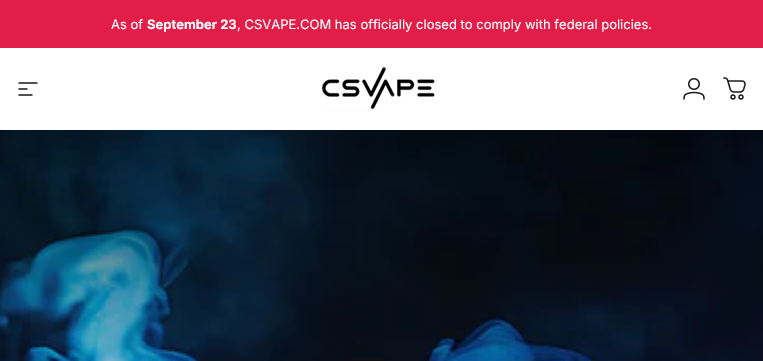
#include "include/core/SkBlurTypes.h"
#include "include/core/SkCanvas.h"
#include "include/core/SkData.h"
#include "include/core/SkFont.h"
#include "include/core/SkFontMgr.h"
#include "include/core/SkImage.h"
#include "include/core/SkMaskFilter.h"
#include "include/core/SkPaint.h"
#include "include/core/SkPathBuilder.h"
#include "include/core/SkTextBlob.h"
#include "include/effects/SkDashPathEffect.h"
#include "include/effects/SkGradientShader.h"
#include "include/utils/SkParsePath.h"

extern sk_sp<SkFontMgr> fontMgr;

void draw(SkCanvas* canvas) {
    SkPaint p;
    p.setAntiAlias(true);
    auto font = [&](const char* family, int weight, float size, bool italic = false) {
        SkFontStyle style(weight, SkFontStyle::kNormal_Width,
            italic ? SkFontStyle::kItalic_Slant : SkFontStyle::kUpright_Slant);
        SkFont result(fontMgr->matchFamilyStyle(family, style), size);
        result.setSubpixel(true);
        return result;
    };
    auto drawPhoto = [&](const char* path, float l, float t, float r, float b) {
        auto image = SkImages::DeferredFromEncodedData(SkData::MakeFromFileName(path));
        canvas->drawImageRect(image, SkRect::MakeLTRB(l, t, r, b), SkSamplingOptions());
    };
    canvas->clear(0xFFFFFFFF);
    p.setColor(0xFFE11D48);
    canvas->drawRect(SkRect::MakeLTRB(0, 0, 763, 48), p);
    auto font1 = font("Inter", 400, 13);
    p.setColor(0xFFFFFFFF);
    canvas->drawString("As of", 111, 29, font1, p);
    auto font2 = font("Inter", 700, 13);
    canvas->drawString("September 23", 147, 29, font2, p);
    canvas->drawString(", CSVAPE.COM has officially closed to comply with federal policies.", 237, 29, font1, p);
    p.setStyle(SkPaint::kStroke_Style);
    p.setStrokeWidth(1.5f);
    p.setStrokeCap(SkPaint::kRound_Cap);
    p.setColor(0xFF171717);
    canvas->drawPath(SkPathBuilder().moveTo(19, 83).lineTo(37, 83).moveTo(19, 89).lineTo(27, 89).moveTo(19, 95).lineTo(32, 95).detach(), p);
    drawPhoto("media/1.png", 321, 67, 435, 110);
    drawPhoto("media/2.png", 683, 78, 705, 100);
    drawPhoto("media/3.png", 723, 77, 746, 100);
    drawPhoto("media/4.png", 0, 130, 763, 361);
}
